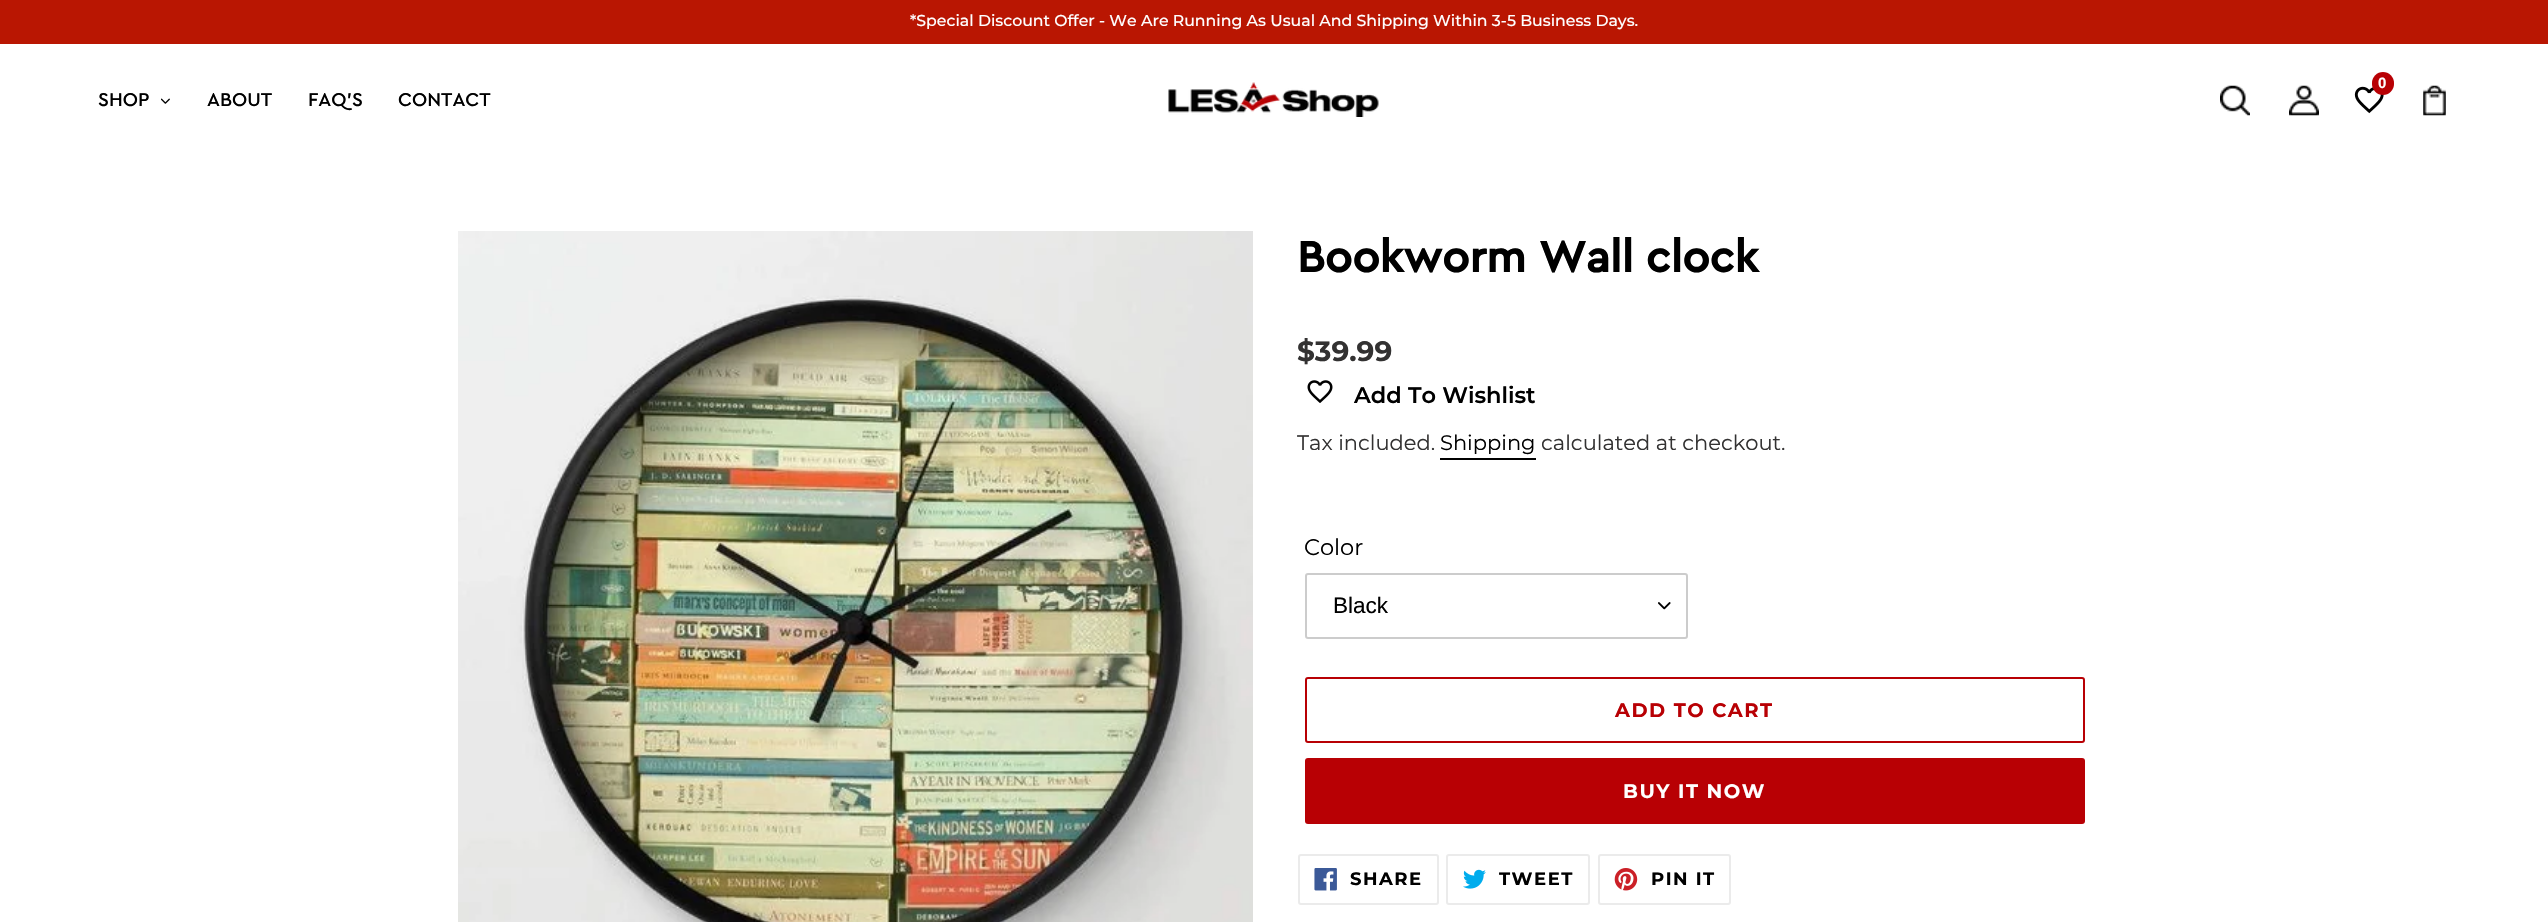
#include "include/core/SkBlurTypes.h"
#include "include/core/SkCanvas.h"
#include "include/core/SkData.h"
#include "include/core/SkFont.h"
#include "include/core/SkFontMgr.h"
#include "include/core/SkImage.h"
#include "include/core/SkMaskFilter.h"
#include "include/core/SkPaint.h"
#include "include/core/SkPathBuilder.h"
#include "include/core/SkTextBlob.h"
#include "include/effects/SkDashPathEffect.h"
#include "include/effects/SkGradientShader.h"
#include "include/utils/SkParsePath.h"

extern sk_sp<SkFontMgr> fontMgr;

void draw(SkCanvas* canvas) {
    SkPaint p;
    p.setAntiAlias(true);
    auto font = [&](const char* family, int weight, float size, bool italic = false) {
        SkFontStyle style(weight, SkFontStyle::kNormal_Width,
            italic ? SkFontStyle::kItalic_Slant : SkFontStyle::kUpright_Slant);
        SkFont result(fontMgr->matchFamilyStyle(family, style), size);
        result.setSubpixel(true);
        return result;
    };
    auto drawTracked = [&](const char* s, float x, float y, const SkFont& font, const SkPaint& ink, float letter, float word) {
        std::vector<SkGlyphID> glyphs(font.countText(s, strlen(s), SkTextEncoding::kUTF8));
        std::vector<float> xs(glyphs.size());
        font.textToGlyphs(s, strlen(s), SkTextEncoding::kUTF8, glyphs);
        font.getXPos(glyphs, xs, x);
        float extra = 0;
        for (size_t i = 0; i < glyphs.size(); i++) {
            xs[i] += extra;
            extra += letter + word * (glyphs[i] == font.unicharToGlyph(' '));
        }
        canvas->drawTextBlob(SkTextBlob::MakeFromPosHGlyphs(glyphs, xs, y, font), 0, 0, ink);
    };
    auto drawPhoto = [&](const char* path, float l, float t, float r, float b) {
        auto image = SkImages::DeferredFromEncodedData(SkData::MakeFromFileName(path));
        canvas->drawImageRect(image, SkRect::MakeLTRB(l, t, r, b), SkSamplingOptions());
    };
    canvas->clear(0xFFFFFFFF);
    p.setColor(0xFFB91602);
    canvas->drawRect(SkRect::MakeLTRB(0, 0, 2548, 44), p);
    auto font1 = font("Montserrat", 500, 15.75f);
    p.setColor(0xFFFFFFFF);
    canvas->drawString("*Special Discount Offer - We Are Running As Usual And Shipping Within 3-5 Business Days.", 910, 26, font1, p);
    auto font2 = font("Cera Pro", 500, 19.5f);
    p.setColor(0xFF000000);
    canvas->drawString("SHOP", 98, 106, font2, p);
    drawPhoto("media/1.png", 161, 98, 170, 104);
    {
        const struct { const char* s; float x, y; } items[] = {
            {"ABOUT", 207, 106},
            {"FAQ'S", 308, 106},
            {"CONTACT", 398, 106},
        };
        for (auto [s, x, y] : items) {
            canvas->drawString(s, x, y, font2, p);
        }
    }
    drawPhoto("media/2.png", 1168, 82, 1379, 117);
    drawPhoto("media/3.png", 2354, 86, 2384, 114);
    p.setColor(0xFFB80004);
    canvas->drawRoundRect(SkRect::MakeLTRB(2372, 72, 2394, 95), 11, 11, p);
    auto font3 = font("Liberation Sans", 700, 15);
    p.setColor(0xFFFFFFFF);
    canvas->drawString("0", 2378, 88, font3, p);
    drawPhoto("media/4.png", 2220, 85, 2250, 116);
    drawPhoto("media/5.png", 2289, 85, 2319, 116);
    drawPhoto("media/6.png", 2423, 85, 2446, 116);
    drawPhoto("media/7.png", 458, 231, 1253, 922);
    auto font4 = font("Cera Pro", 700, 45);
    p.setColor(0xFF000000);
    canvas->drawString("Bookworm Wall clock", 1297, 272, font4, p);
    auto font5 = font("Montserrat", 700, 28);
    p.setColor(0xFF333232);
    canvas->drawString("$39.99", 1297, 361, font5, p);
    drawPhoto("media/8.png", 1307, 380, 1333, 403);
    auto font6 = font("Montserrat", 600, 22.5f);
    p.setColor(0xFF000000);
    canvas->drawString("Add To Wishlist", 1354, 403, font6, p);
    auto font7 = font("Montserrat", 400, 21);
    p.setColor(0xFF333232);
    canvas->drawString("Tax included.", 1297, 450, font7, p);
    p.setColor(0xFF000000);
    canvas->drawString("Shipping", 1440, 450, font7, p);
    canvas->drawRect(SkRect::MakeLTRB(1440, 458, 1536, 460), p);
    p.setColor(0xFF333232);
    canvas->drawString("calculated at checkout.", 1541, 450, font7, p);
    auto font8 = font("Montserrat", 400, 22.5f);
    p.setColor(0xFF000000);
    canvas->drawString("Color", 1304, 555, font8, p);
    drawPhoto("media/9.png", 1658, 602, 1671, 610);
    p.setStyle(SkPaint::kStroke_Style);
    p.setStrokeWidth(2);
    p.setColor(0xFFCCCCCC);
    canvas->drawRoundRect(SkRect::MakeLTRB(1306, 574, 1687, 638), 2, 2, p);
    auto font9 = font("Liberation Sans", 400, 22.5f);
    p.setStyle(SkPaint::kFill_Style);
    p.setColor(0xFF000000);
    canvas->drawString("Black", 1333, 613, font9, p);
    p.setStyle(SkPaint::kStroke_Style);
    p.setColor(0xFFB80004);
    canvas->drawRoundRect(SkRect::MakeLTRB(1306, 678, 2084, 742), 2, 2, p);
    auto font10 = font("Montserrat", 700, 19.5f);
    p.setStyle(SkPaint::kFill_Style);
    drawTracked("ADD TO CART", 1615, 717, font10, p, 1.5f, 0);
    canvas->drawRoundRect(SkRect::MakeLTRB(1305, 758, 2085, 824), 3, 3, p);
    p.setColor(0xFFFFFFFF);
    drawTracked("BUY IT NOW", 1623, 798, font10, p, 1.5f, 0);
    p.setStyle(SkPaint::kStroke_Style);
    p.setColor(0xFFEBEBEB);
    canvas->drawRoundRect(SkRect::MakeLTRB(1299, 855, 1438, 904), 2, 2, p);
    drawPhoto("media/10.png", 1314, 868, 1337, 891);
    auto font11 = font("Montserrat", 700, 18);
    p.setStyle(SkPaint::kFill_Style);
    p.setColor(0xFF000000);
    drawTracked("SHARE", 1350, 885, font11, p, 1.5f, 0);
    p.setStyle(SkPaint::kStroke_Style);
    p.setColor(0xFFEBEBEB);
    canvas->drawRoundRect(SkRect::MakeLTRB(1447, 855, 1589, 904), 2, 2, p);
    drawPhoto("media/11.png", 1463, 869, 1486, 889);
    p.setStyle(SkPaint::kFill_Style);
    p.setColor(0xFF000000);
    drawTracked("TWEET", 1499, 885, font11, p, 1.5f, 0);
    p.setStyle(SkPaint::kStroke_Style);
    p.setColor(0xFFEBEBEB);
    canvas->drawRoundRect(SkRect::MakeLTRB(1599, 855, 1730, 904), 2, 2, p);
    drawPhoto("media/12.png", 1614, 868, 1638, 891);
    p.setStyle(SkPaint::kFill_Style);
    p.setColor(0xFF000000);
    drawTracked("PIN IT", 1651, 885, font11, p, 1.5f, 0);
}
